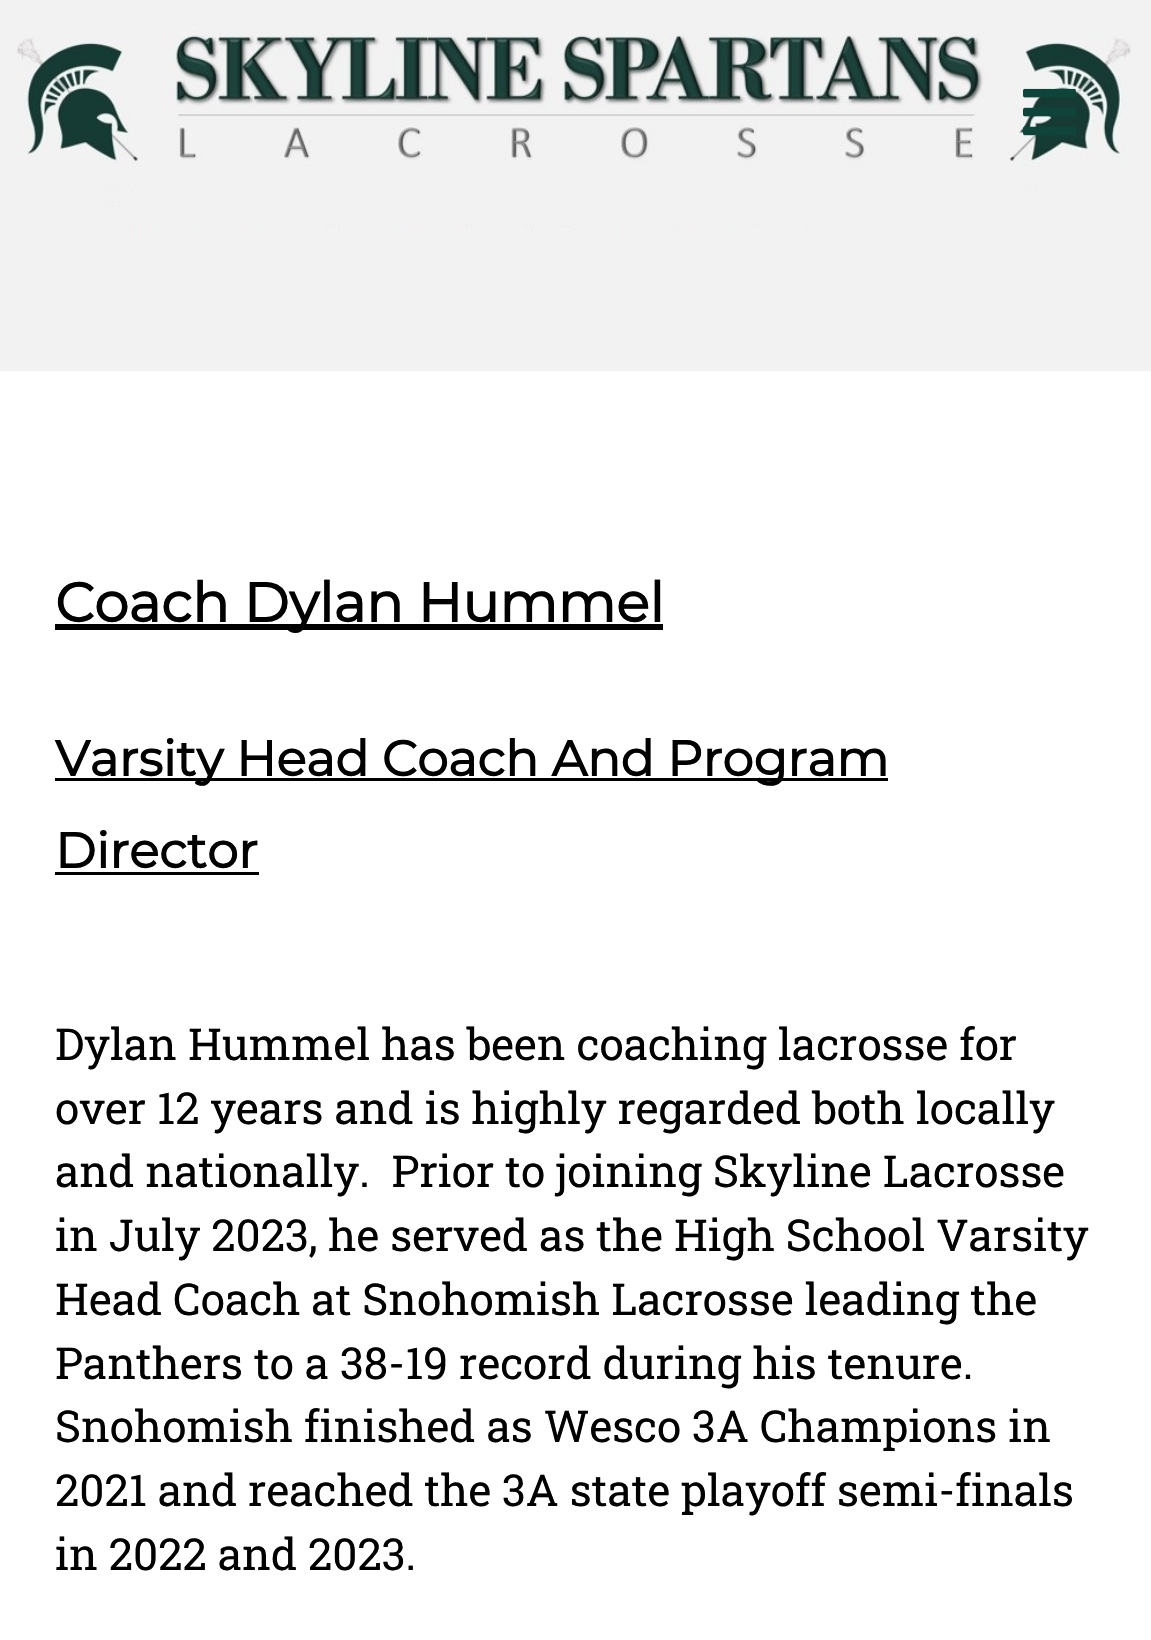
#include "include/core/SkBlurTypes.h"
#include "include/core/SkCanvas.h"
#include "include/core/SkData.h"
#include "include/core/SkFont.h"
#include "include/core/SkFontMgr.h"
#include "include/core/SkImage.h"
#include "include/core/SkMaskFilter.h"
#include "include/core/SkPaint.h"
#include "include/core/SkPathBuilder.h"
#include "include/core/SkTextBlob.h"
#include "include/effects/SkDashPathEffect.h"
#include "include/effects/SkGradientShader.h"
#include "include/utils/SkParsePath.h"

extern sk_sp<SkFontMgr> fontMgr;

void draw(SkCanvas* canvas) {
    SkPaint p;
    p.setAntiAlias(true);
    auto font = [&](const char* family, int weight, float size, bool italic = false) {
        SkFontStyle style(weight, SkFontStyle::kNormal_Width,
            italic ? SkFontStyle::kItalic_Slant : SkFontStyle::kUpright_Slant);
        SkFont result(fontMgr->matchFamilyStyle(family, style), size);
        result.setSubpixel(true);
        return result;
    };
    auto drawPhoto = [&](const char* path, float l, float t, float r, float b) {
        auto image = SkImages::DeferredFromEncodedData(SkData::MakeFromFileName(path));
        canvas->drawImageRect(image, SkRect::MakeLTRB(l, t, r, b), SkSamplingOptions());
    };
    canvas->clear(0xFFF2F2F2);
    drawPhoto("media/1.png", 17, 29, 1131, 230);
    drawPhoto("media/2.png", 1023, 88, 1076, 136);
    p.setColor(0xFFFFFFFF);
    canvas->drawRect(SkRect::MakeLTRB(0, 371, 1151, 1640), p);
    p.setColor(0xFF000000);
    canvas->drawRect(SkRect::MakeLTRB(55, 624, 663, 630), p);
    auto font1 = font("Montserrat", 700, 55);
    canvas->drawString("Coach Dylan Hummel", 55, 622, font1, p);
    canvas->drawRect(SkRect::MakeLTRB(55, 778, 888, 781), p);
    auto font2 = font("Montserrat", 700, 49.5f);
    canvas->drawString("Varsity Head Coach And Program", 55, 776, font2, p);
    canvas->drawString("Director", 55, 868, font2, p);
    canvas->drawRect(SkRect::MakeLTRB(55, 872, 259, 875), p);
    auto font3 = font("Roboto Slab", 400, 44);
    {
        const struct { const char* s; float x, y; } items[] = {
            {"Dylan Hummel has been coaching lacrosse for", 55, 1060},
            {"over 12 years and is highly regarded both locally", 55, 1124},
            {"and nationally.  Prior to joining Skyline Lacrosse", 55, 1187},
            {"in July 2023, he served as the High School Varsity", 55, 1251},
            {"Head Coach at Snohomish Lacrosse leading the", 55, 1315},
            {"Panthers to a 38-19 record during his tenure.", 55, 1379},
            {"Snohomish finished as Wesco 3A Champions in", 55, 1442},
            {"2021 and reached the 3A state playoff semi-finals", 55, 1506},
            {"in 2022 and 2023.", 55, 1570},
        };
        for (auto [s, x, y] : items) {
            canvas->drawString(s, x, y, font3, p);
        }
    }
}
